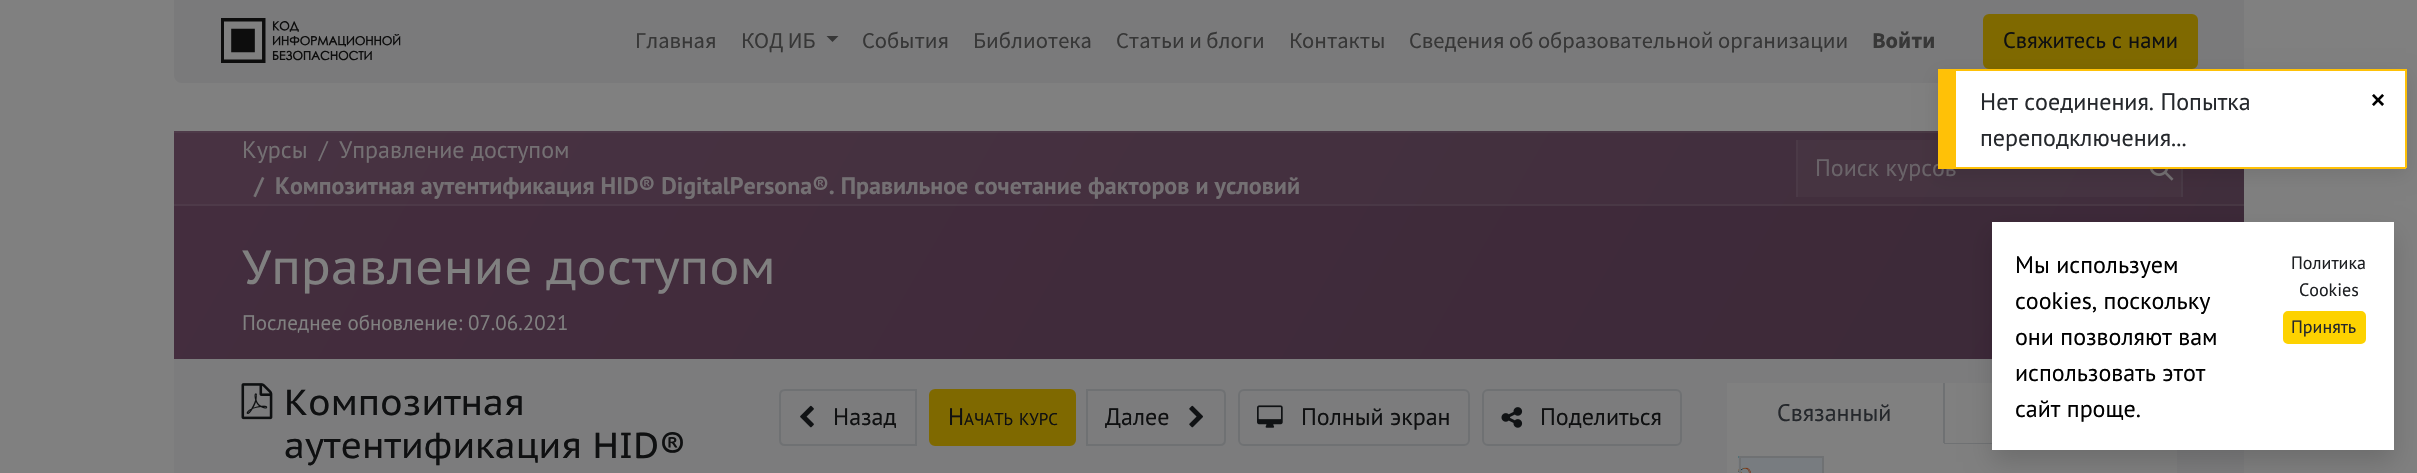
#include "include/core/SkBlurTypes.h"
#include "include/core/SkCanvas.h"
#include "include/core/SkData.h"
#include "include/core/SkFont.h"
#include "include/core/SkFontMgr.h"
#include "include/core/SkImage.h"
#include "include/core/SkMaskFilter.h"
#include "include/core/SkPaint.h"
#include "include/core/SkPathBuilder.h"
#include "include/core/SkTextBlob.h"
#include "include/effects/SkDashPathEffect.h"
#include "include/effects/SkGradientShader.h"
#include "include/utils/SkParsePath.h"

extern sk_sp<SkFontMgr> fontMgr;

void draw(SkCanvas* canvas) {
    SkPaint p;
    p.setAntiAlias(true);
    auto font = [&](const char* family, int weight, float size, bool italic = false) {
        SkFontStyle style(weight, SkFontStyle::kNormal_Width,
            italic ? SkFontStyle::kItalic_Slant : SkFontStyle::kUpright_Slant);
        SkFont result(fontMgr->matchFamilyStyle(family, style), size);
        result.setSubpixel(true);
        return result;
    };
    auto drawPhoto = [&](const char* path, float l, float t, float r, float b) {
        auto image = SkImages::DeferredFromEncodedData(SkData::MakeFromFileName(path));
        canvas->drawImageRect(image, SkRect::MakeLTRB(l, t, r, b), SkSamplingOptions());
    };
    canvas->clear(0xFF808080);
    p.setColor(0xFF7A7A7B);
    canvas->drawPath(SkPathBuilder().moveTo(174, 0).lineTo(2244, 0).lineTo(2244, 75).cubicTo(2244, 79.5f, 2240.5f, 83, 2236, 83).lineTo(182, 83).cubicTo(177.5f, 83, 174, 79.5f, 174, 75).close().detach(), p);
    drawPhoto("media/1.png", 221, 18, 401, 63);
    auto font1 = font("Source Sans Pro", 400, 22.5f);
    p.setColor(0xFF373737);
    canvas->drawString("Главная", 635, 48, font1, p);
    canvas->drawString("КОД ИБ", 741, 48, font1, p);
    canvas->drawPath(SkPathBuilder().moveTo(826.5f, 36).lineTo(838.5f, 36).lineTo(832.5f, 42).close().detach(), p);
    {
        const struct { const char* s; float x, y; } items[] = {
            {"События", 862, 48},
            {"Библиотека", 973, 48},
            {"Статьи и блоги", 1116, 48},
            {"Контакты", 1289, 48},
            {"Сведения об образовательной организации", 1409, 48},
        };
        for (auto [s, x, y] : items) {
            canvas->drawString(s, x, y, font1, p);
        }
    }
    auto font2 = font("Source Sans Pro", 700, 22.5f);
    canvas->drawString("Войти", 1872, 48, font2, p);
    p.setColor(0xFF7F6900);
    canvas->drawRoundRect(SkRect::MakeLTRB(1984, 15, 2197, 68), 5, 5, p);
    p.setStyle(SkPaint::kStroke_Style);
    p.setStrokeWidth(2);
    canvas->drawRoundRect(SkRect::MakeLTRB(1984, 15, 2197, 68), 5, 5, p);
    auto font3 = font("PT Sans", 400, 22.5f);
    p.setStyle(SkPaint::kFill_Style);
    p.setColor(0xFF0F1011);
    canvas->drawString("Свяжитесь с нами", 2003, 48, font3, p);
    p.setColor(0xFF7C7C7D);
    canvas->drawRect(SkRect::MakeLTRB(174, 359, 2244, 473), p);
    {
        const SkColor colors[] = {0xFF442D3E, 0xFF3C2938};
        const float stops[] = {0, 1};
        const SkPoint ends[] = {{383, -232}, {2035, 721}};
        p.setShader(SkGradientShader::MakeLinear(ends, colors, stops, 2, SkTileMode::kClamp));
        p.setAlpha(255);
    }
    canvas->drawRect(SkRect::MakeLTRB(174, 131, 2244, 359), p);
    p.setShader(nullptr);
    {
        const struct { float l, t, r, b; SkColor color; } items[] = {
            {174, 131, 2244, 206, 0x0D808080},
            {174, 131, 1938, 133, 0x1A808080},
            {174, 204, 2244, 206, 0x1A808080},
        };
        for (auto [l, t, r, b, color] : items) {
            p.setColor(color);
            canvas->drawRect(SkRect::MakeLTRB(l, t, r, b), p);
        }
    }
    auto font4 = font("PT Sans", 400, 24);
    p.setColor(0xFF747073);
    {
        const struct { const char* s; float x, y; } items[] = {
            {"Курсы", 242, 158},
            {"/", 319, 158},
            {"Управление доступом", 339, 158},
        };
        for (auto [s, x, y] : items) {
            canvas->drawString(s, x, y, font4, p);
        }
    }
    auto font5 = font("PT Sans", 700, 24);
    canvas->drawString("/", 254, 194, font5, p);
    canvas->drawString("Композитная аутентификация HID® DigitalPersona®. Правильное сочетание факторов и условий", 275, 194, font5, p);
    {
        const struct { float l, t, r, b; SkColor color; } items[] = {
            {1798, 140, 2181, 197, 0x0D808080},
            {2181, 169, 2183, 197, 0xFF493A46},
            {1796, 140, 1798, 197, 0xFF4B3A47},
        };
        for (auto [l, t, r, b, color] : items) {
            p.setColor(color);
            canvas->drawRect(SkRect::MakeLTRB(l, t, r, b), p);
        }
    }
    p.setColor(0xFF6A6469);
    canvas->drawString("Поиск курсов", 1815, 176, font4, p);
    drawPhoto("media/2.png", 2149, 169, 2174, 181);
    auto font6 = font("PT Sans Caption", 400, 48);
    p.setColor(0xFF808080);
    canvas->drawString("Управление доступом", 242, 284, font6, p);
    auto font7 = font("PT Sans", 400, 21);
    canvas->drawString("Последнее обновление: 07.06.2021", 242, 330, font7, p);
    drawPhoto("media/3.png", 241, 383, 273, 420);
    auto font8 = font("PT Sans Caption", 400, 36);
    p.setColor(0xFF0F1011);
    canvas->drawString("Композитная", 284, 415, font8, p);
    canvas->drawString("аутентификация HID®", 284, 458, font8, p);
    p.setStyle(SkPaint::kStroke_Style);
    p.setColor(0xFF6F7173);
    canvas->drawPath(SkPathBuilder().moveTo(785, 390).lineTo(916, 390).lineTo(916, 445).lineTo(785, 445).cubicTo(782, 445, 780, 443, 780, 440).lineTo(780, 395).cubicTo(780, 392, 782, 390, 785, 390).close().detach(), p);
    drawPhoto("media/4.png", 800, 405, 814, 428);
    p.setStyle(SkPaint::kFill_Style);
    p.setColor(0xFF0F1011);
    canvas->drawString("Назад", 833, 425, font4, p);
    p.setColor(0xFF7F6900);
    canvas->drawRoundRect(SkRect::MakeLTRB(930, 390, 1075, 445), 5, 5, p);
    p.setStyle(SkPaint::kStroke_Style);
    canvas->drawRoundRect(SkRect::MakeLTRB(930, 390, 1075, 445), 5, 5, p);
    p.setStyle(SkPaint::kFill_Style);
    p.setColor(0xFF0F1011);
    canvas->drawString("Н", 948, 425, font4, p);
    auto font9 = font("PT Sans", 400, 17);
    canvas->drawString("АЧАТЬ", 964, 425, font9, p);
    canvas->drawString("КУРС", 1019, 425, font9, p);
    p.setStyle(SkPaint::kStroke_Style);
    p.setColor(0xFF6F7173);
    canvas->drawPath(SkPathBuilder().moveTo(1087, 390).lineTo(1220, 390).cubicTo(1223, 390, 1225, 392, 1225, 395).lineTo(1225, 440).cubicTo(1225, 443, 1223, 445, 1220, 445).lineTo(1087, 445).close().detach(), p);
    p.setStyle(SkPaint::kFill_Style);
    p.setColor(0xFF0F1011);
    canvas->drawString("Далее", 1105, 425, font4, p);
    drawPhoto("media/5.png", 1189, 405, 1203, 428);
    p.setStyle(SkPaint::kStroke_Style);
    p.setColor(0xFF6F7173);
    canvas->drawRoundRect(SkRect::MakeLTRB(1239, 390, 1469, 445), 5, 5, p);
    drawPhoto("media/6.png", 1257, 405, 1283, 428);
    p.setStyle(SkPaint::kFill_Style);
    p.setColor(0xFF0F1011);
    canvas->drawString("Полный экран", 1301, 425, font4, p);
    p.setStyle(SkPaint::kStroke_Style);
    p.setColor(0xFF6F7173);
    canvas->drawRoundRect(SkRect::MakeLTRB(1483, 390, 1681, 445), 5, 5, p);
    drawPhoto("media/7.png", 1501, 407, 1523, 428);
    p.setStyle(SkPaint::kFill_Style);
    p.setColor(0xFF0F1011);
    canvas->drawString("Поделиться", 1540, 425, font4, p);
    {
        const struct { float l, t, r, b; SkColor color; } items[] = {
            {1945, 383, 1992, 443, 0xFF808080},
            {1945, 443, 1992, 444, 0xFF6F7173},
            {1727, 383, 1943, 443, 0xFF808080},
            {1943, 383, 1945, 444, 0xFF6F7173},
            {1727, 443, 1944, 444, 0xFF808080},
        };
        for (auto [l, t, r, b, color] : items) {
            p.setColor(color);
            canvas->drawRect(SkRect::MakeLTRB(l, t, r, b), p);
        }
    }
    p.setColor(0xFF25282C);
    canvas->drawString("Связанный", 1777, 421, font4, p);
    p.setColor(0xFF808080);
    canvas->drawRect(SkRect::MakeLTRB(1727, 444, 2177, 473), p);
    drawPhoto("media/8.png", 1738, 456, 1822, 473);
    p.setStyle(SkPaint::kStroke_Style);
    p.setColor(0xFF6F7173);
    canvas->drawRect(SkRect::MakeLTRB(1740, 457, 1823, 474), p);
    p.setStyle(SkPaint::kFill_Style);
    p.setColor(0x26000000);
    p.setMaskFilter(SkMaskFilter::MakeBlur(kNormal_SkBlurStyle, 12));
    canvas->drawRect(SkRect::MakeLTRB(1992, 234, 2394, 462), p);
    p.setMaskFilter(nullptr);
    p.setColor(0xFFFFFFFF);
    canvas->drawRect(SkRect::MakeLTRB(1992, 222, 2394, 450), p);
    p.setColor(0xFF000000);
    {
        const struct { const char* s; float x, y; } items[] = {
            {"Мы используем", 2015, 273},
            {"cookies, поскольку", 2015, 309},
            {"они позволяют вам", 2015, 345},
            {"использовать этот", 2015, 381},
            {"сайт проще.", 2015, 417},
        };
        for (auto [s, x, y] : items) {
            canvas->drawString(s, x, y, font4, p);
        }
    }
    auto font10 = font("PT Sans", 400, 18);
    p.setColor(0xFF1D1F22);
    canvas->drawString("Политика", 2291, 269, font10, p);
    canvas->drawString("Cookies", 2299, 296, font10, p);
    p.setColor(0xFFFDD200);
    canvas->drawRoundRect(SkRect::MakeLTRB(2284, 312, 2365, 343), 4, 4, p);
    p.setStyle(SkPaint::kStroke_Style);
    canvas->drawRoundRect(SkRect::MakeLTRB(2284, 312, 2365, 343), 4, 4, p);
    p.setStyle(SkPaint::kFill_Style);
    p.setColor(0xFF25282C);
    canvas->drawString("Принять", 2291, 333, font10, p);
    p.setColor(0x1A000000);
    p.setMaskFilter(SkMaskFilter::MakeBlur(kNormal_SkBlurStyle, 9));
    canvas->drawRect(SkRect::MakeLTRB(1938, 75, 2406, 174), p);
    p.setMaskFilter(nullptr);
    {
        const struct { float l, t, r, b; SkColor color; } items[] = {
            {1956, 71, 2405, 167, 0xFFFFFFFF},
            {1956, 69, 2406, 71, 0xFFFFC107},
            {2405, 69, 2407, 168, 0xFFFFC107},
            {1938, 167, 2406, 169, 0xFFFFC107},
            {1938, 69, 1956, 167, 0xFFFFC107},
        };
        for (auto [l, t, r, b, color] : items) {
            p.setColor(color);
            canvas->drawRect(SkRect::MakeLTRB(l, t, r, b), p);
        }
    }
    p.setColor(0xFF25282C);
    canvas->drawString("Нет соединения. Попытка", 1980, 110, font4, p);
    canvas->drawString("переподключения...", 1980, 146, font4, p);
    auto font11 = font("Liberation Sans", 700, 24);
    p.setColor(0xFF000000);
    canvas->drawString("×", 2371, 108, font11, p);
}
